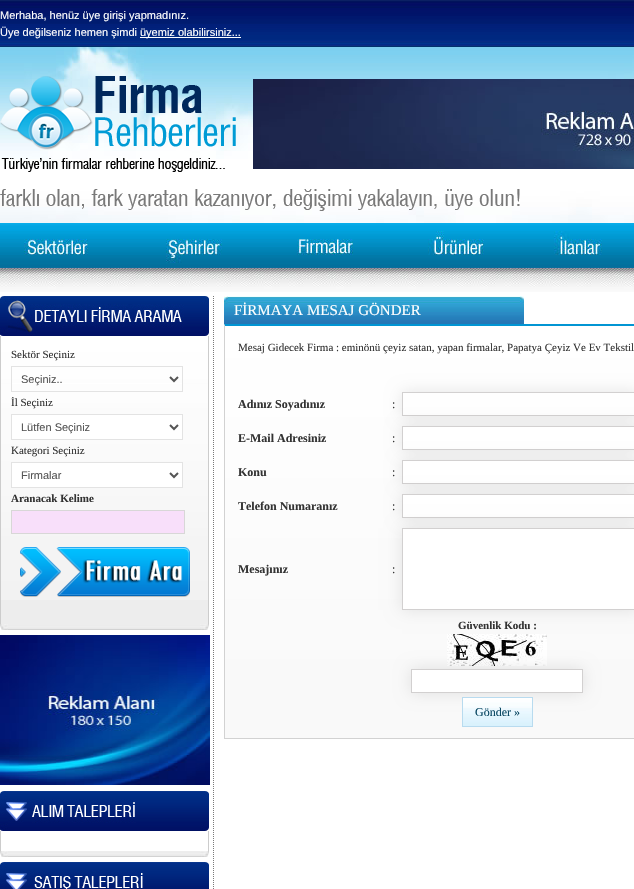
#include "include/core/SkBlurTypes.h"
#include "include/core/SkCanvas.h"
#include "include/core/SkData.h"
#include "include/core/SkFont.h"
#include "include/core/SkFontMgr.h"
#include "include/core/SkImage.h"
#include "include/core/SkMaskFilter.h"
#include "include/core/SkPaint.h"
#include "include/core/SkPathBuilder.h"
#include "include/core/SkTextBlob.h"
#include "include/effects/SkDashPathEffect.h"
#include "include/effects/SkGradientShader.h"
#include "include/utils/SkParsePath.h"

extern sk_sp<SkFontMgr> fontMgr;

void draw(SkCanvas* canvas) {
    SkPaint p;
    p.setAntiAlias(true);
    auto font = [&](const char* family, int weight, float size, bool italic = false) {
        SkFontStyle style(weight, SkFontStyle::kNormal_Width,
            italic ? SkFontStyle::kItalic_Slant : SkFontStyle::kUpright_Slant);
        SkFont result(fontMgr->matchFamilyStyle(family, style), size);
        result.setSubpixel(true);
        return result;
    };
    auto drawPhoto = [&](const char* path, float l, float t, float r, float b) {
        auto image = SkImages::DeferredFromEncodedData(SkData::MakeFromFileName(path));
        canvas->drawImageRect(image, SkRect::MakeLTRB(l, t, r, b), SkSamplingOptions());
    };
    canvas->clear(0xFFFFFFFF);
    drawPhoto("media/1.png", 0, 0, 634, 47);
    auto font1 = font("Liberation Sans", 400, 11);
    p.setColor(0xFFFFFFFF);
    canvas->drawString("Merhaba, henüz üye girişi yapmadınız.", 0, 19, font1, p);
    canvas->drawString("Üye değilseniz hemen şimdi", 0, 36, font1, p);
    canvas->drawRect(SkRect::MakeLTRB(140, 37, 241, 38), p);
    canvas->drawString("üyemiz olabilirsiniz...", 140, 36, font1, p);
    drawPhoto("media/2.png", 0, 47, 634, 223);
    drawPhoto("media/3.png", 0, 76, 236, 172);
    drawPhoto("media/4.png", 253, 79, 634, 169);
    drawPhoto("media/5.png", 0, 189, 520, 211);
    drawPhoto("media/6.png", 0, 268, 634, 292);
    drawPhoto("media/7.png", 0, 223, 118, 268);
    drawPhoto("media/8.png", 118, 223, 257, 268);
    drawPhoto("media/9.png", 257, 223, 388, 268);
    drawPhoto("media/10.png", 388, 223, 522, 268);
    drawPhoto("media/11.png", 522, 223, 634, 268);
    drawPhoto("media/12.png", 0, 296, 209, 336);
    p.setColor(0xFFEDEDED);
    canvas->drawRect(SkRect::MakeLTRB(1, 600, 208, 624), p);
    drawPhoto("media/13.png", 1, 336, 208, 600);
    p.setColor(0xFFCCCCCC);
    canvas->drawRect(SkRect::MakeLTRB(208, 336, 209, 624), p);
    canvas->drawRect(SkRect::MakeLTRB(0, 336, 1, 624), p);
    auto font2 = font("Liberation Serif", 400, 11);
    p.setColor(0xFF333333);
    canvas->drawString("Sektör Seçiniz", 11, 358, font2, p);
    p.setColor(0xFFFFFFFF);
    canvas->drawRect(SkRect::MakeLTRB(12, 383, 182, 384), p);
    p.setStyle(SkPaint::kStroke_Style);
    p.setStrokeWidth(1);
    p.setColor(0xFFE3E3E3);
    canvas->drawRect(SkRect::MakeLTRB(11.5f, 366.5f, 182.5f, 391.5f), p);
    p.setStrokeWidth(2);
    p.setColor(0xFF555555);
    canvas->drawPath(SkPathBuilder().moveTo(170, 377).lineTo(174, 381).lineTo(178, 377).detach(), p);
    p.setStyle(SkPaint::kFill_Style);
    canvas->drawString("Seçiniz..", 21, 383, font1, p);
    p.setColor(0xFF333333);
    canvas->drawString("İl Seçiniz", 11, 406, font2, p);
    p.setColor(0xFFFFFFFF);
    canvas->drawRect(SkRect::MakeLTRB(11.5f, 414.5f, 182.5f, 439.5f), p);
    p.setStyle(SkPaint::kStroke_Style);
    p.setStrokeWidth(1);
    p.setColor(0xFFE3E3E3);
    canvas->drawRect(SkRect::MakeLTRB(11.5f, 414.5f, 182.5f, 439.5f), p);
    p.setStrokeWidth(2);
    p.setColor(0xFF555555);
    canvas->drawPath(SkPathBuilder().moveTo(170, 425).lineTo(174, 429).lineTo(178, 425).detach(), p);
    p.setStyle(SkPaint::kFill_Style);
    canvas->drawString("Lütfen Seçiniz", 21, 431, font1, p);
    p.setColor(0xFF333333);
    canvas->drawString("Kategori Seçiniz", 11, 454, font2, p);
    p.setColor(0xFFFFFFFF);
    canvas->drawRect(SkRect::MakeLTRB(11.5f, 462.5f, 182.5f, 487.5f), p);
    p.setStyle(SkPaint::kStroke_Style);
    p.setStrokeWidth(1);
    p.setColor(0xFFE3E3E3);
    canvas->drawRect(SkRect::MakeLTRB(11.5f, 462.5f, 182.5f, 487.5f), p);
    p.setStrokeWidth(2);
    p.setColor(0xFF555555);
    canvas->drawPath(SkPathBuilder().moveTo(170, 473).lineTo(174, 477).lineTo(178, 473).detach(), p);
    p.setStyle(SkPaint::kFill_Style);
    canvas->drawString("Firmalar", 21, 479, font1, p);
    auto font3 = font("Liberation Serif", 700, 11);
    p.setColor(0xFF333333);
    canvas->drawString("Aranacak Kelime", 11, 502, font3, p);
    p.setColor(0xFFF8DFFA);
    canvas->drawRect(SkRect::MakeLTRB(11.5f, 510.5f, 184.5f, 533.5f), p);
    p.setStyle(SkPaint::kStroke_Style);
    p.setStrokeWidth(1);
    p.setColor(0xFFD8D7D7);
    canvas->drawRect(SkRect::MakeLTRB(11.5f, 510.5f, 184.5f, 533.5f), p);
    drawPhoto("media/14.png", 20, 547, 190, 597);
    drawPhoto("media/15.png", 0, 624, 209, 630);
    drawPhoto("media/16.png", 0, 635, 210, 785);
    drawPhoto("media/17.png", 0, 791, 209, 831);
    p.setStyle(SkPaint::kFill_Style);
    p.setColor(0xFFCCCCCC);
    canvas->drawRect(SkRect::MakeLTRB(208, 831, 209, 851), p);
    canvas->drawRect(SkRect::MakeLTRB(0, 831, 1, 851), p);
    drawPhoto("media/15.png", 0, 851, 209, 857);
    drawPhoto("media/18.png", 0, 862, 209, 889);
    p.setStyle(SkPaint::kStroke_Style);
    p.setColor(0xFF797979);
    p.setPathEffect(SkDashPathEffect::Make({{1, 1}}, 0));
    canvas->drawPath(SkPathBuilder().moveTo(213.5f, 296).lineTo(213.5f, 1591).detach(), p);
    p.setPathEffect(nullptr);
    drawPhoto("media/19.png", 224, 296, 228, 324);
    drawPhoto("media/20.png", 228, 296, 520, 324);
    auto font4 = font("Liberation Serif", 400, 15);
    p.setStyle(SkPaint::kFill_Style);
    p.setColor(0xFFFFFFFF);
    canvas->drawString("FİRMAYA MESAJ GÖNDER", 234, 315, font4, p);
    drawPhoto("media/21.png", 520, 296, 524, 324);
    p.setColor(0xFFF9F9F9);
    canvas->drawRect(SkRect::MakeLTRB(225, 690, 634, 738), p);
    drawPhoto("media/22.png", 225, 326, 634, 690);
    p.setColor(0xFF0195D3);
    canvas->drawPath(SkPathBuilder().moveTo(224, 324).lineTo(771, 324).lineTo(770, 326).lineTo(225, 326).close().detach(), p);
    p.setColor(0xFFD2D2D2);
    canvas->drawRect(SkRect::MakeLTRB(224, 738, 634, 739), p);
    canvas->drawPath(SkPathBuilder().moveTo(224, 739).lineTo(224, 324).lineTo(225, 326).lineTo(225, 738).close().detach(), p);
    p.setColor(0xFF333333);
    canvas->drawString("Mesaj Gidecek Firma : eminönü çeyiz satan, yapan firmalar, Papatya Çeyiz Ve Ev Tekstil", 238, 351, font2, p);
    auto font5 = font("Liberation Serif", 700, 12);
    canvas->drawString("Adınız Soyadınız", 238, 408, font5, p);
    canvas->save();
    canvas->clipPath(SkPathBuilder(SkPathFillType::kEvenOdd).moveTo(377, 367).lineTo(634, 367).lineTo(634, 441).lineTo(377, 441).close().moveTo(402, 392).lineTo(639, 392).lineTo(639, 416).lineTo(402, 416).close().detach(), true);
    p.setColor(0x1A000000);
    p.setMaskFilter(SkMaskFilter::MakeBlur(kNormal_SkBlurStyle, 8));
    canvas->drawRect(SkRect::MakeLTRB(402, 392, 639, 416), p);
    p.setMaskFilter(nullptr);
    canvas->restore();
    p.setStyle(SkPaint::kStroke_Style);
    p.setColor(0xFFD2D0D0);
    canvas->drawRect(SkRect::MakeLTRB(402.5f, 392.5f, 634.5f, 415.5f), p);
    auto font6 = font("Liberation Serif", 400, 12);
    p.setStyle(SkPaint::kFill_Style);
    p.setColor(0xFF333333);
    canvas->drawString(":", 392, 408, font6, p);
    canvas->drawString("E-Mail Adresiniz", 238, 442, font5, p);
    p.setColor(0x1A000000);
    p.setMaskFilter(SkMaskFilter::MakeBlur(kNormal_SkBlurStyle, 8));
    canvas->drawRect(SkRect::MakeLTRB(402, 426, 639, 450), p);
    p.setMaskFilter(nullptr);
    p.setColor(0xFFFFFFFF);
    canvas->drawRect(SkRect::MakeLTRB(402.5f, 426.5f, 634.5f, 449.5f), p);
    p.setStyle(SkPaint::kStroke_Style);
    p.setColor(0xFFD2D0D0);
    canvas->drawRect(SkRect::MakeLTRB(402.5f, 426.5f, 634.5f, 449.5f), p);
    p.setStyle(SkPaint::kFill_Style);
    p.setColor(0xFF333333);
    canvas->drawString(":", 392, 442, font6, p);
    canvas->drawString("Konu", 238, 476, font5, p);
    p.setColor(0x1A000000);
    p.setMaskFilter(SkMaskFilter::MakeBlur(kNormal_SkBlurStyle, 8));
    canvas->drawRect(SkRect::MakeLTRB(402, 460, 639, 484), p);
    p.setMaskFilter(nullptr);
    p.setColor(0xFFFFFFFF);
    canvas->drawRect(SkRect::MakeLTRB(402.5f, 460.5f, 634.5f, 483.5f), p);
    p.setStyle(SkPaint::kStroke_Style);
    p.setColor(0xFFD2D0D0);
    canvas->drawRect(SkRect::MakeLTRB(402.5f, 460.5f, 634.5f, 483.5f), p);
    p.setStyle(SkPaint::kFill_Style);
    p.setColor(0xFF333333);
    canvas->drawString(":", 392, 476, font6, p);
    canvas->drawString("Telefon Numaranız", 238, 510, font5, p);
    p.setColor(0x1A000000);
    p.setMaskFilter(SkMaskFilter::MakeBlur(kNormal_SkBlurStyle, 8));
    canvas->drawRect(SkRect::MakeLTRB(402, 494, 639, 518), p);
    p.setMaskFilter(nullptr);
    p.setColor(0xFFFFFFFF);
    canvas->drawRect(SkRect::MakeLTRB(402.5f, 494.5f, 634.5f, 517.5f), p);
    p.setStyle(SkPaint::kStroke_Style);
    p.setColor(0xFFD2D0D0);
    canvas->drawRect(SkRect::MakeLTRB(402.5f, 494.5f, 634.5f, 517.5f), p);
    p.setStyle(SkPaint::kFill_Style);
    p.setColor(0xFF333333);
    canvas->drawString(":", 392, 510, font6, p);
    canvas->drawString("Mesajınız", 238, 573, font5, p);
    drawPhoto("media/23.png", 447, 634, 547, 666);
    p.setColor(0x1A000000);
    p.setMaskFilter(SkMaskFilter::MakeBlur(kNormal_SkBlurStyle, 8));
    canvas->drawRect(SkRect::MakeLTRB(402, 528, 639, 610), p);
    p.setMaskFilter(nullptr);
    p.setColor(0xFFFFFFFF);
    canvas->drawRect(SkRect::MakeLTRB(402.5f, 528.5f, 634.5f, 609.5f), p);
    p.setStyle(SkPaint::kStroke_Style);
    p.setColor(0xFFD2D0D0);
    canvas->drawRect(SkRect::MakeLTRB(402.5f, 528.5f, 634.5f, 609.5f), p);
    p.setStyle(SkPaint::kFill_Style);
    p.setColor(0xFF333333);
    canvas->drawString(":", 392, 573, font6, p);
    canvas->drawString("Güvenlik Kodu :", 458, 629, font3, p);
    p.setColor(0x1A000000);
    p.setMaskFilter(SkMaskFilter::MakeBlur(kNormal_SkBlurStyle, 8));
    canvas->drawRect(SkRect::MakeLTRB(411, 669, 583, 693), p);
    p.setMaskFilter(nullptr);
    p.setColor(0xFFFFFFFF);
    canvas->drawRect(SkRect::MakeLTRB(411.5f, 669.5f, 582.5f, 692.5f), p);
    p.setStyle(SkPaint::kStroke_Style);
    p.setColor(0xFFD2D0D0);
    canvas->drawRect(SkRect::MakeLTRB(411.5f, 669.5f, 582.5f, 692.5f), p);
    drawPhoto("media/24.png", 463, 698, 532, 726);
    p.setColor(0xFFB8DBEF);
    canvas->drawRect(SkRect::MakeLTRB(462.5f, 697.5f, 532.5f, 726.5f), p);
    p.setStyle(SkPaint::kFill_Style);
    p.setColor(0xFF05445F);
    canvas->drawString("Gönder »", 475, 716, font6, p);
}
